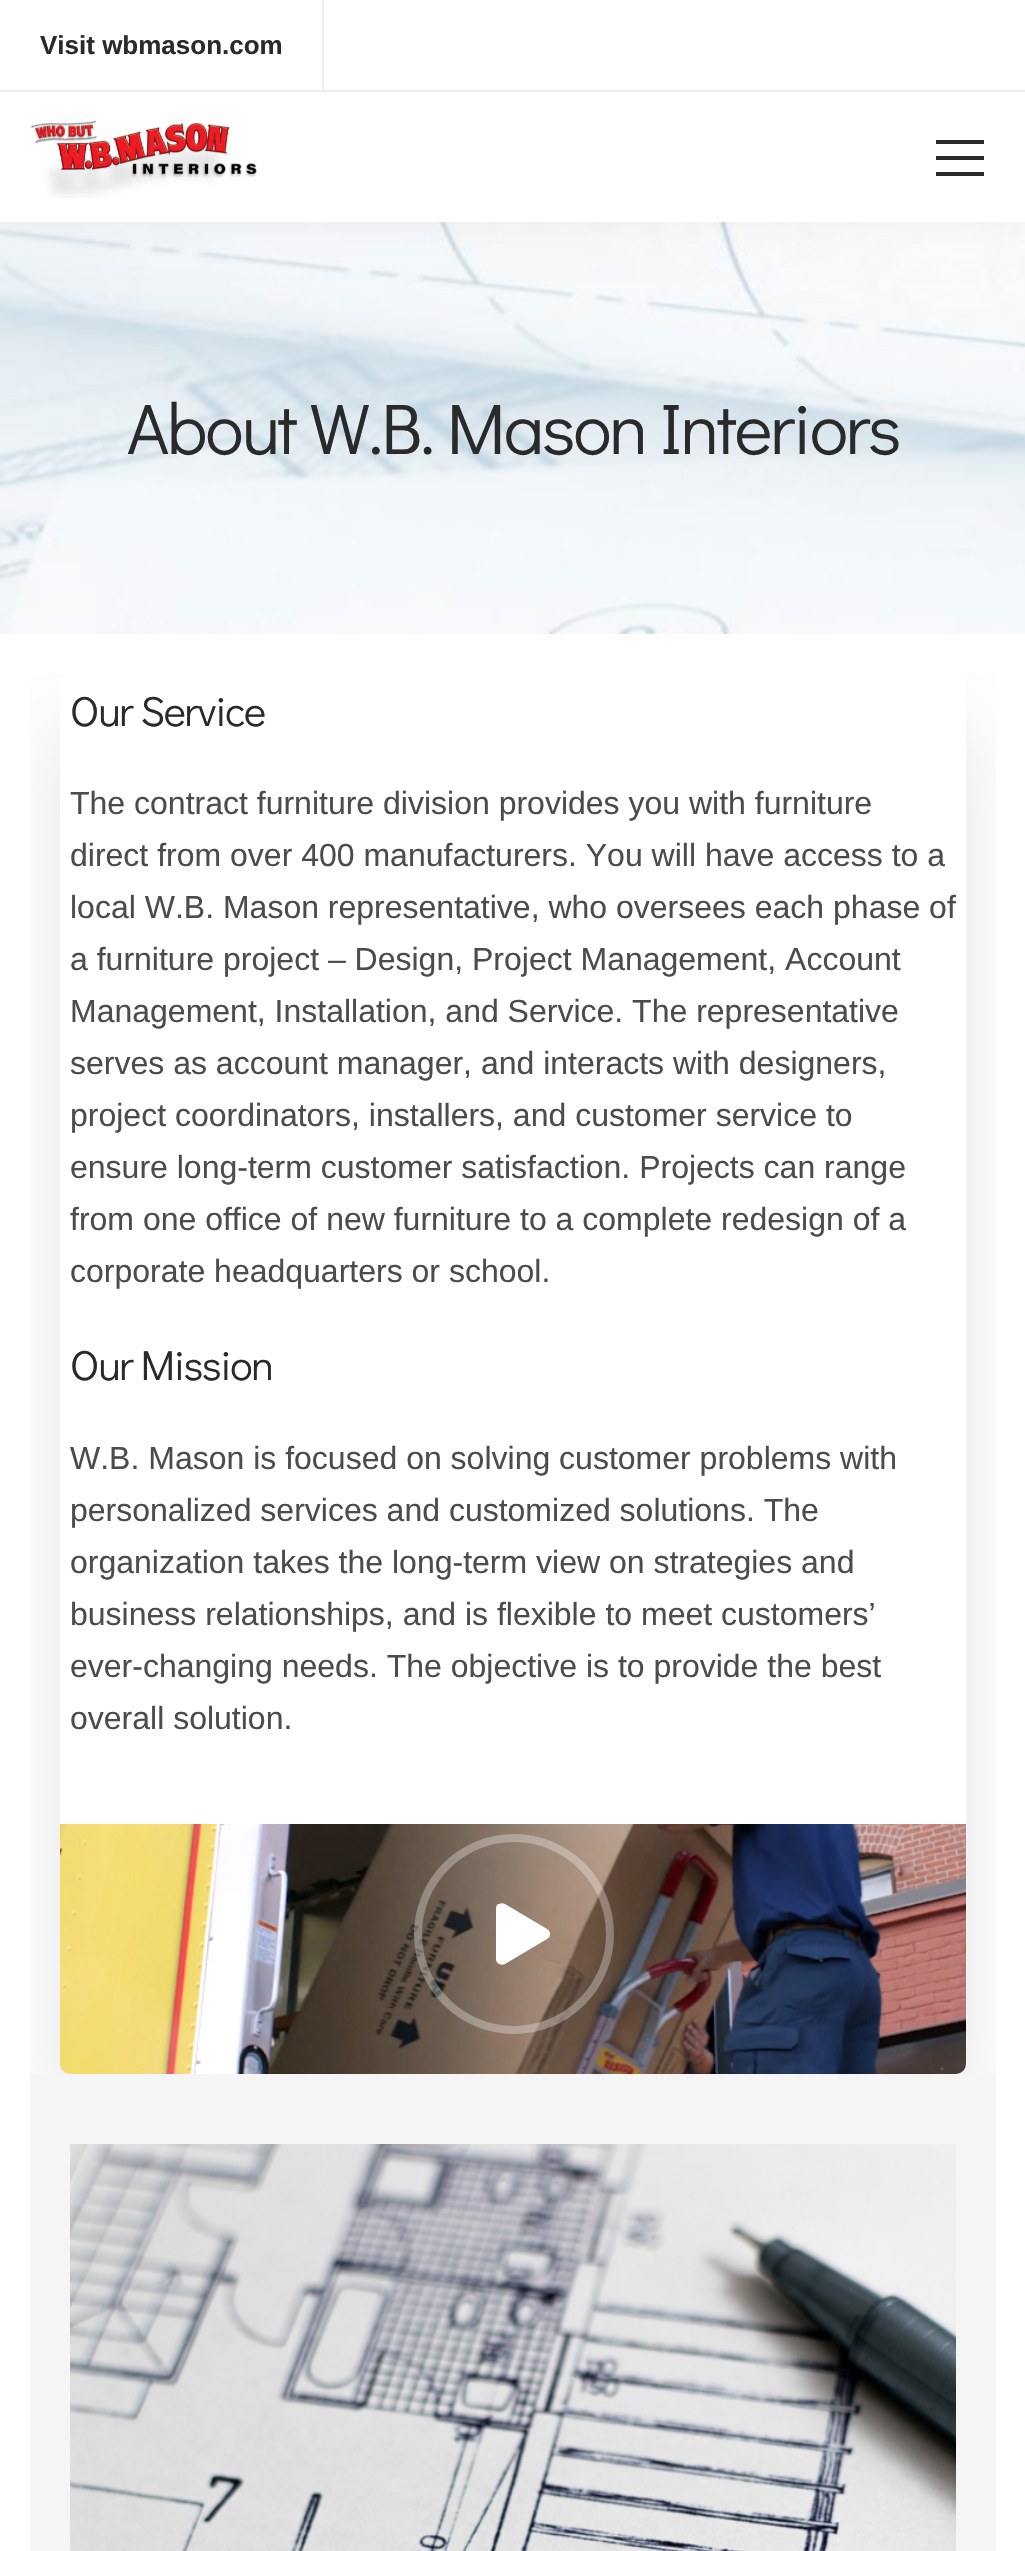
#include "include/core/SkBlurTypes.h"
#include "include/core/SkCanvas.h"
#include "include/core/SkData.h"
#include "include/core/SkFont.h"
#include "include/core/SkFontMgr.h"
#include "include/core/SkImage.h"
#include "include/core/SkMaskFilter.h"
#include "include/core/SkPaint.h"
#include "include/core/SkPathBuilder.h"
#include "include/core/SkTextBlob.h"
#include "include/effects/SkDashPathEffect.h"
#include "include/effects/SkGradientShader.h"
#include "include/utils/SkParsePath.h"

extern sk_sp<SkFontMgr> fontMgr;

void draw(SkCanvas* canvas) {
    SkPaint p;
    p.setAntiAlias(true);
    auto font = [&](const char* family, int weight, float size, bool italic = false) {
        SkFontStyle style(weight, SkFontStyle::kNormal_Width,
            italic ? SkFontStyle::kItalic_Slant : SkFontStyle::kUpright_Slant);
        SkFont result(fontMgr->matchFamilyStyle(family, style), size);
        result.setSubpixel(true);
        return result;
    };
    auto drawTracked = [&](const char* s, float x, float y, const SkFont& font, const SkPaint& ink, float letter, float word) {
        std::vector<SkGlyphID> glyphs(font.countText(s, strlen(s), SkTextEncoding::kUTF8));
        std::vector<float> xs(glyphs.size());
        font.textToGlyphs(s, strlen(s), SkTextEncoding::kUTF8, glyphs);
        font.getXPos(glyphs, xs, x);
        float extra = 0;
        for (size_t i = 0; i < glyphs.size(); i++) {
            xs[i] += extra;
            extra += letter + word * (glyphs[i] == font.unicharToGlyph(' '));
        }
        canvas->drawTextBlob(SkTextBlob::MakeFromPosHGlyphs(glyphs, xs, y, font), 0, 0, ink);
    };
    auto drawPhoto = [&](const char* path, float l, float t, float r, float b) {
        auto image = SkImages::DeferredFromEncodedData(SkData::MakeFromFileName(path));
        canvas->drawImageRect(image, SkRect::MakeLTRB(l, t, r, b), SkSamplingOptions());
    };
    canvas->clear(0xFFFFFFFF);
    drawPhoto("media/2.png", 0, 222, 1025, 634);
    p.setColor(0x0D000000);
    p.setMaskFilter(SkMaskFilter::MakeBlur(kNormal_SkBlurStyle, 20));
    canvas->drawRect(SkRect::MakeLTRB(0, 0, 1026, 222), p);
    p.setMaskFilter(nullptr);
    {
        const struct { float l, t, r, b; SkColor color; } items[] = {
            {0, 0, 1025, 90, 0xFFFFFFFF},
            {0, 90, 1025, 92, 0xFFEDEDED},
            {322, 0, 324, 90, 0xFFEDEDED},
        };
        for (auto [l, t, r, b, color] : items) {
            p.setColor(color);
            canvas->drawRect(SkRect::MakeLTRB(l, t, r, b), p);
        }
    }
    auto font1 = font("Liberation Sans", 700, 26);
    p.setColor(0xFF2A2A2A);
    canvas->drawString("Visit wbmason.com", 40, 54, font1, p);
    p.setColor(0xFFFFFFFF);
    canvas->drawRect(SkRect::MakeLTRB(0, 92, 1025, 222), p);
    drawPhoto("media/1.png", 31, 120, 257, 198);
    {
        const struct { float l, t, r, b; SkColor color; } items[] = {
            {936, 172, 984, 176, 0xFF2A2A2A},
            {936, 140, 984, 144, 0xFF2A2A2A},
            {936, 156, 984, 160, 0xFF2A2A2A},
        };
        for (auto [l, t, r, b, color] : items) {
            p.setColor(color);
            canvas->drawRect(SkRect::MakeLTRB(l, t, r, b), p);
        }
    }
    auto font2 = font("Didact Gothic", 400, 72);
    drawTracked("About W.B. Mason Interiors", 127, 454, font2, p, -2.15f, 0);
    canvas->save();
    canvas->clipRect(SkRect::MakeLTRB(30, 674, 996, 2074));
    p.setColor(0x1A000000);
    p.setMaskFilter(SkMaskFilter::MakeBlur(kNormal_SkBlurStyle, 40));
    canvas->drawRoundRect(SkRect::MakeLTRB(60, 724, 966, 2124), 10, 10, p);
    p.setMaskFilter(nullptr);
    canvas->restore();
    p.setColor(0xFFFFFFFF);
    canvas->drawRoundRect(SkRect::MakeLTRB(60, 674, 966, 2074), 10, 10, p);
    auto font3 = font("Didact Gothic", 400, 42);
    p.setColor(0xFF2A2A2A);
    drawTracked("Our Service", 70, 726, font3, p, -1.25f, 0);
    auto font4 = font("Liberation Sans", 400, 32);
    p.setColor(0xFF4C4C4C);
    {
        const struct { const char* s; float x, y; } items[] = {
            {"The contract furniture division provides you with furniture", 70, 814},
            {"direct from over 400 manufacturers. You will have access to a", 70, 866},
            {"local W.B. Mason representative, who oversees each phase of", 70, 918},
            {"a furniture project – Design, Project Management, Account", 70, 970},
            {"Management, Installation, and Service. The representative", 70, 1022},
            {"serves as account manager, and interacts with designers,", 70, 1074},
            {"project coordinators, installers, and customer service to", 70, 1126},
            {"ensure long-term customer satisfaction. Projects can range", 70, 1178},
            {"from one office of new furniture to a complete redesign of a", 70, 1230},
            {"corporate headquarters or school.", 70, 1282},
        };
        for (auto [s, x, y] : items) {
            canvas->drawString(s, x, y, font4, p);
        }
    }
    p.setColor(0xFF2A2A2A);
    drawTracked("Our Mission", 70, 1380, font3, p, -1.25f, 0);
    p.setColor(0xFF4C4C4C);
    {
        const struct { const char* s; float x, y; } items[] = {
            {"W.B. Mason is focused on solving customer problems with", 70, 1469},
            {"personalized services and customized solutions. The", 70, 1521},
            {"organization takes the long-term view on strategies and", 70, 1573},
            {"business relationships, and is flexible to meet customers’", 70, 1625},
            {"ever-changing needs. The objective is to provide the best", 70, 1677},
            {"overall solution.", 70, 1729},
        };
        for (auto [s, x, y] : items) {
            canvas->drawString(s, x, y, font4, p);
        }
    }
    drawPhoto("media/3.png", 60, 1824, 966, 2074);
    p.setStyle(SkPaint::kStroke_Style);
    p.setStrokeWidth(8);
    p.setColor(0x4DFFFFFF);
    canvas->drawCircle(514, 1934, 96, p);
    p.setStyle(SkPaint::kFill_Style);
    p.setColor(0xFFFFFFFF);
    canvas->drawPath(SkPathBuilder().moveTo(547, 1929).lineTo(505, 1904).cubicTo(503, 1903, 501, 1903, 499, 1904).cubicTo(497, 1904, 496, 1906, 496, 1909).lineTo(496, 1959).cubicTo(496, 1961, 497, 1963, 499, 1964).cubicTo(501, 1965, 503, 1965, 505, 1964).lineTo(547, 1939).cubicTo(549, 1938, 550, 1936, 550, 1934).cubicTo(550, 1932, 549, 1930, 547, 1929).close().detach(), p);
    p.setColor(0xFFF5F5F5);
    canvas->drawRect(SkRect::MakeLTRB(30, 2074, 996, 2551), p);
    drawPhoto("media/4.png", 70, 2144, 956, 2551);
}
